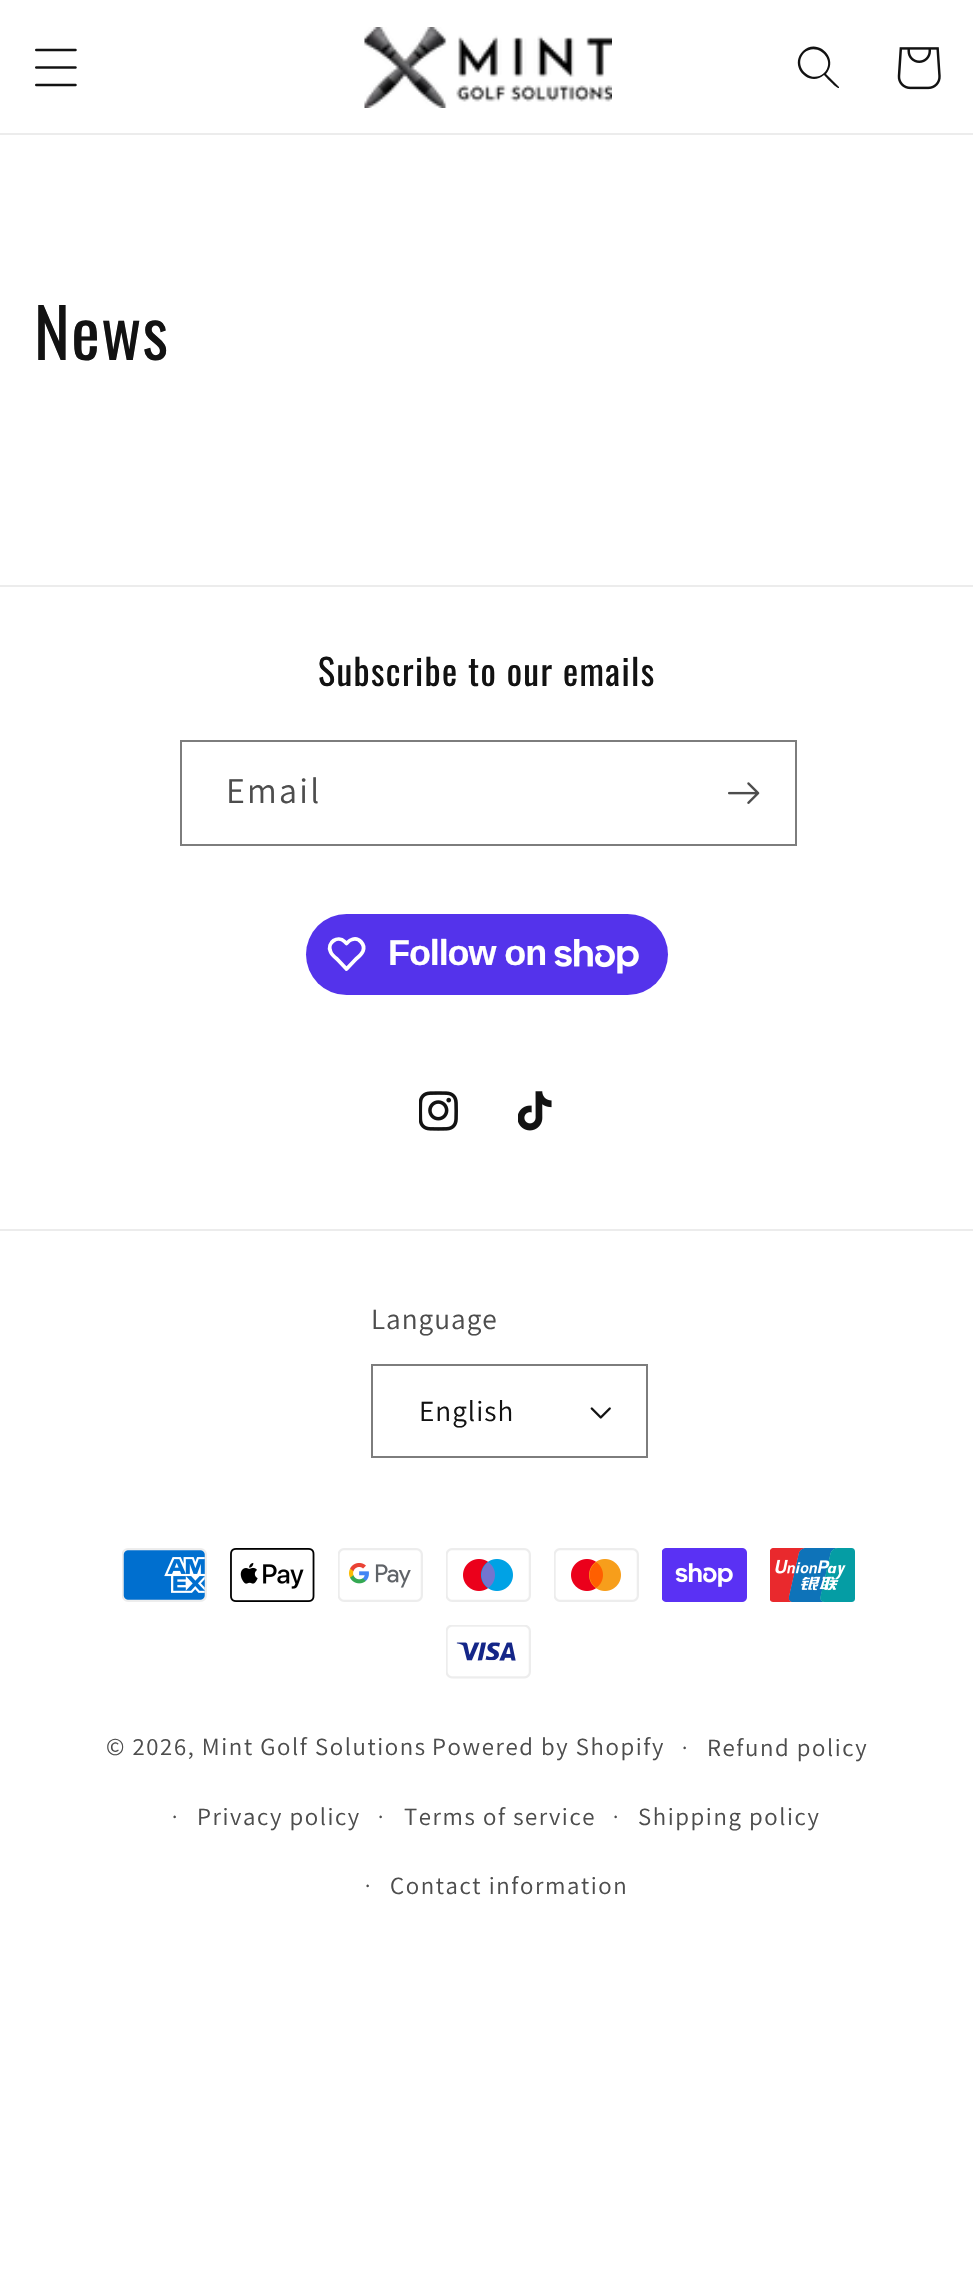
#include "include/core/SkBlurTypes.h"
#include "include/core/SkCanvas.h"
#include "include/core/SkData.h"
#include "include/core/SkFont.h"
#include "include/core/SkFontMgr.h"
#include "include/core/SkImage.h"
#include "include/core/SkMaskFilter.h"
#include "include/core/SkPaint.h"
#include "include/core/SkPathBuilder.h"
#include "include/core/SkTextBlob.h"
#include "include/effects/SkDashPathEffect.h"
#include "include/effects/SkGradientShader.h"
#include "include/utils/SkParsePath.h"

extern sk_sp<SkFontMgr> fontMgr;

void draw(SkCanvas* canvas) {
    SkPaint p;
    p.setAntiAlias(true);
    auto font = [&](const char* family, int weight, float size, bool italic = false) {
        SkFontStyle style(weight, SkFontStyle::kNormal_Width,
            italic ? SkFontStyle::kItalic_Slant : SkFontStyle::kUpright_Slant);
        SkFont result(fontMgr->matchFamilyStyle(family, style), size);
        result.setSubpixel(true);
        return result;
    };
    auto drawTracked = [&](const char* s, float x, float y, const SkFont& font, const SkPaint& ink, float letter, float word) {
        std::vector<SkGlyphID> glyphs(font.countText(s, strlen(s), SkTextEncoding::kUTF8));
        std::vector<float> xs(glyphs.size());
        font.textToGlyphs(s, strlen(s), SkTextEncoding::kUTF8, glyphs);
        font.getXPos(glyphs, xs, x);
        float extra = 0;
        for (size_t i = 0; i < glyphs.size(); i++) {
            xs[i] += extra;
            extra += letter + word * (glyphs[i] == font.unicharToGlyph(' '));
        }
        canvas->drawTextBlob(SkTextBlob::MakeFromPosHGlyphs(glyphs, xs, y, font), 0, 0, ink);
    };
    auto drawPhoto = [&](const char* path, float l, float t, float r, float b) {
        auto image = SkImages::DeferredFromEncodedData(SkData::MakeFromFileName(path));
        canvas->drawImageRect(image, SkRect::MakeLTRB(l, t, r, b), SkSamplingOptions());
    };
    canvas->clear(0xFFFFFFFF);
    p.setColor(0xFFECECEC);
    canvas->drawRect(SkRect::MakeLTRB(0, 133, 973, 135), p);
    drawPhoto("media/1.png", 35, 48, 77, 87);
    drawPhoto("media/2.png", 364, 27, 612, 108);
    p.setColor(0xFF121212);
    canvas->drawPath(SkPathBuilder(SkPathFillType::kEvenOdd).moveTo(824, 73).cubicTo(811, 85, 792, 66, 804, 53).cubicTo(817, 41, 837, 60, 824, 73).close().moveTo(824, 75).cubicTo(809, 88, 788, 66, 803, 51).cubicTo(817, 37, 840, 58, 826, 74).lineTo(839, 87).lineTo(839, 88).cubicTo(837, 89, 826, 77, 824, 75).close().detach(), p);
    drawPhoto("media/3.png", 897, 47, 941, 90);
    auto font1 = font("Oswald", 400, 68);
    drawTracked("News", 34, 360, font1, p, 1.35f, 0);
    p.setColor(0xFFECECEC);
    canvas->drawRect(SkRect::MakeLTRB(0, 585, 973, 587), p);
    auto font2 = font("Oswald", 400, 36);
    p.setColor(0xFF121212);
    drawTracked("Subscribe to our emails", 318, 686, font2, p, 1.35f, 0);
    p.setStyle(SkPaint::kStroke_Style);
    p.setStrokeWidth(2);
    p.setColor(0xFF7D7D7D);
    canvas->drawRect(SkRect::MakeLTRB(181, 741, 796, 845), p);
    auto font3 = font("Assistant", 400, 36);
    p.setStyle(SkPaint::kFill_Style);
    p.setColor(0xFF4D4D4D);
    drawTracked("Email", 226, 803, font3, p, 2.25f, 0);
    drawPhoto("media/4.png", 728, 782, 760, 804);
    p.setColor(0xFF5433EB);
    canvas->drawRoundRect(SkRect::MakeLTRB(306, 914, 668, 995), 40.5f, 40.5f, p);
    p.setStyle(SkPaint::kStroke_Style);
    p.setStrokeWidth(3.8f);
    p.setStrokeJoin(SkPaint::kRound_Join);
    p.setColor(0xFFFFFFFF);
    canvas->drawPath(SkPathBuilder().moveTo(344.5f, 941.5f).lineTo(346.5f, 943.5f).cubicTo(348, 942, 349.5f, 940, 352, 939.5f).cubicTo(359, 937, 365.5f, 944.5f, 363, 951).cubicTo(361.5f, 954.5f, 358.5f, 957, 356, 959).lineTo(346.5f, 969).lineTo(337, 959).cubicTo(334.5f, 957, 331.5f, 954.5f, 330.5f, 951.5f).cubicTo(326.5f, 942.5f, 338, 935, 344.5f, 941.5f).close().detach(), p);
    auto font4 = font("Liberation Sans", 700, 36);
    p.setStyle(SkPaint::kFill_Style);
    drawTracked("Follow on", 388, 965, font4, p, -1.1f, 0);
    drawPhoto("media/5.png", 554, 939, 639, 974);
    drawPhoto("media/6.png", 419, 1091, 458, 1131);
    drawPhoto("media/7.png", 518, 1091, 552, 1131);
    p.setColor(0xFFECECEC);
    canvas->drawRect(SkRect::MakeLTRB(0, 1229, 973, 1231), p);
    auto font5 = font("Assistant", 400, 29.25f);
    p.setColor(0xFF4D4D4D);
    drawTracked("Language", 371, 1329, font5, p, 1, 0);
    drawPhoto("media/8.png", 590, 1407, 611, 1419);
    p.setStyle(SkPaint::kStroke_Style);
    p.setStrokeWidth(2);
    p.setStrokeJoin(SkPaint::kMiter_Join);
    p.setColor(0xFF7D7D7D);
    canvas->drawRect(SkRect::MakeLTRB(372, 1365, 647, 1457), p);
    p.setStyle(SkPaint::kFill_Style);
    p.setColor(0xFF121212);
    drawTracked("English", 419, 1421, font5, p, 1, 0);
    drawPhoto("media/9.png", 122, 1548, 207, 1602);
    drawPhoto("media/10.png", 230, 1548, 315, 1602);
    drawPhoto("media/11.png", 338, 1548, 423, 1602);
    drawPhoto("media/12.png", 446, 1548, 531, 1602);
    drawPhoto("media/13.png", 554, 1548, 639, 1602);
    drawPhoto("media/14.png", 662, 1548, 747, 1602);
    drawPhoto("media/15.png", 770, 1548, 855, 1602);
    drawPhoto("media/16.png", 446, 1625, 531, 1679);
    auto font6 = font("Assistant", 400, 24.75f);
    p.setColor(0xFF4D4D4D);
    drawTracked("© 2026, Mint Golf Solutions", 106, 1755, font6, p, 1.6f, 0);
    drawTracked("Powered by Shopify", 432, 1755, font6, p, 1.6f, 0);
    auto font7 = font("Assistant", 400, 22);
    drawTracked("·", 682, 1755, font7, p, 1.6f, 0);
    drawTracked("Refund policy", 707, 1756, font6, p, 1.6f, 0);
    drawTracked("·", 172, 1824, font7, p, 1.6f, 0);
    drawTracked("Privacy policy", 197, 1825, font6, p, 1.6f, 0);
    drawTracked("·", 378, 1824, font7, p, 1.6f, 0);
    drawTracked("Terms of service", 404, 1825, font6, p, 1.6f, 0);
    drawTracked("·", 613, 1824, font7, p, 1.6f, 0);
    drawTracked("Shipping policy", 638, 1825, font6, p, 1.6f, 0);
    drawTracked("·", 365, 1893, font7, p, 1.6f, 0);
    drawTracked("Contact information", 390, 1894, font6, p, 1.6f, 0);
}
